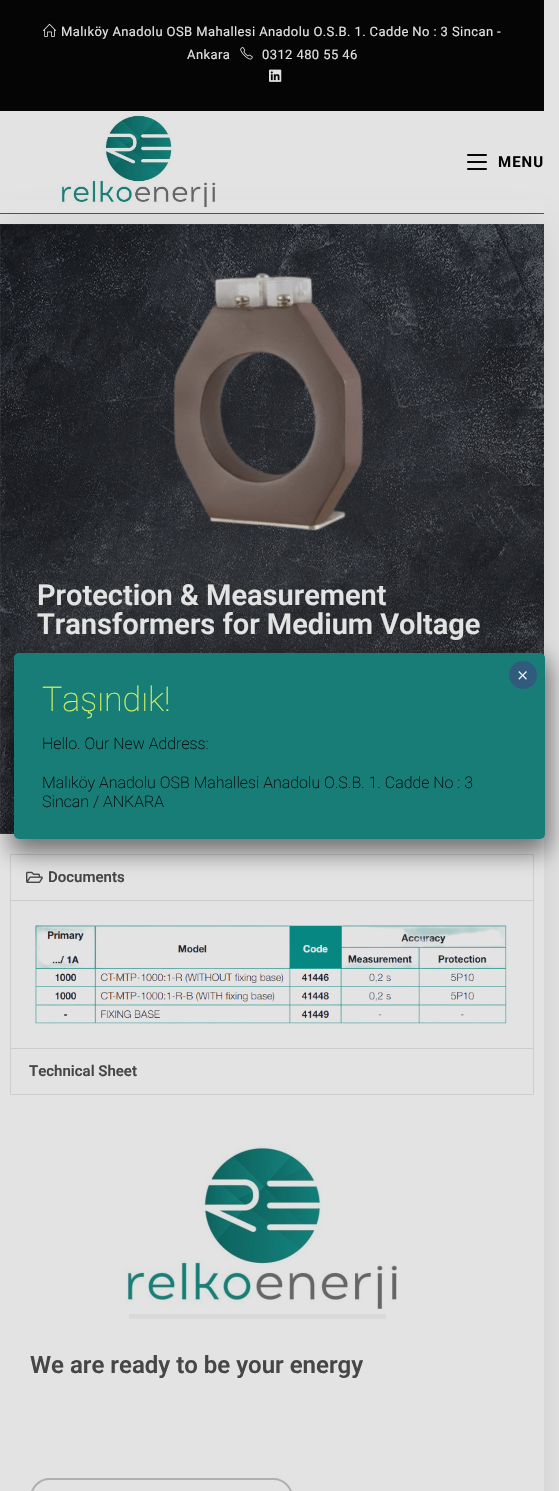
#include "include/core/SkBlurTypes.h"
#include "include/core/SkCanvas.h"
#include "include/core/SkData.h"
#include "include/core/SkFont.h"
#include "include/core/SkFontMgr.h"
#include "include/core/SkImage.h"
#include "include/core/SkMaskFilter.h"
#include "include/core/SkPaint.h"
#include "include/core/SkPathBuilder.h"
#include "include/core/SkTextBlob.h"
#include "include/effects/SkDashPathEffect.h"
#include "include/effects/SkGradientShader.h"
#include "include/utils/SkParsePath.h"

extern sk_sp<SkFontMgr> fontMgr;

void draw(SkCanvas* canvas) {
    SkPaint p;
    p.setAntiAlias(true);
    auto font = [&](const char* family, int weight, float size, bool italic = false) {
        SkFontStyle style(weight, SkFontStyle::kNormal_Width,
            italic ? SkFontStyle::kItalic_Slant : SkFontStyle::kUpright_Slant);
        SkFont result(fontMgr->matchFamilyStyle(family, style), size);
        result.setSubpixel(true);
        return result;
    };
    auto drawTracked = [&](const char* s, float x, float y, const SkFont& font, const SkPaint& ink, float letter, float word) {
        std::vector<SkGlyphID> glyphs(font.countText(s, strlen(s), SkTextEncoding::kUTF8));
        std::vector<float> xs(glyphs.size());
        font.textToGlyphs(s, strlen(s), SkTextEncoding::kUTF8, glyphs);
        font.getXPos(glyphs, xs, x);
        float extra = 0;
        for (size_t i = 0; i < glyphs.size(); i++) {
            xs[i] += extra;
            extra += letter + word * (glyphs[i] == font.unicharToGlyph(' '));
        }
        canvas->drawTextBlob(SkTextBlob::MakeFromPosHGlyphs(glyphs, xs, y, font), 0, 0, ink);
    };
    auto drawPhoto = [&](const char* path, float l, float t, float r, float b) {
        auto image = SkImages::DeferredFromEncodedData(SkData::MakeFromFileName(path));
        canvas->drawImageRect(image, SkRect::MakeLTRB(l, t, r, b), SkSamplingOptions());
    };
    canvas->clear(0xFFE3E3E3);
    p.setColor(0xFF050505);
    canvas->drawRect(SkRect::MakeLTRB(0, 0, 544, 111), p);
    drawPhoto("media/1.png", 43, 23, 56, 37);
    auto font1 = font("Roboto", 400, 13);
    p.setColor(0xFFE3E3E3);
    drawTracked("Malıköy Anadolu OSB Mahallesi Anadolu O.S.B. 1. Cadde No : 3 Sincan -", 61, 36, font1, p, 0.4f, 0);
    drawTracked("Ankara", 187, 59, font1, p, 0.4f, 0);
    drawPhoto("media/2.png", 240, 47, 253, 60);
    drawTracked("0312 480 55 46", 262, 59, font1, p, 0.4f, 0);
    drawPhoto("media/3.png", 269, 69, 282, 82);
    canvas->save();
    canvas->clipPath(SkPathBuilder(SkPathFillType::kEvenOdd).moveTo(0, 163).lineTo(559, 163).lineTo(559, 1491).lineTo(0, 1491).close().moveTo(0, 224).lineTo(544, 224).lineTo(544, 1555).lineTo(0, 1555).close().detach(), true);
    p.setColor(0x1A050505);
    p.setMaskFilter(SkMaskFilter::MakeBlur(kNormal_SkBlurStyle, 20));
    canvas->drawRect(SkRect::MakeLTRB(0, 224, 544, 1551), p);
    p.setMaskFilter(nullptr);
    canvas->restore();
    p.setColor(0xFFE3E3E3);
    canvas->drawRect(SkRect::MakeLTRB(0, 200, 544, 213), p);
    p.setColor(0xFF106E6A);
    canvas->drawRect(SkRect::MakeLTRB(0, 213, 544, 214), p);
    drawPhoto("media/4.png", 58, 114, 216, 208);
    p.setColor(0xFF050505);
    canvas->drawRoundRect(SkRect::MakeLTRB(467, 161, 487, 163), 1, 1, p);
    canvas->drawRoundRect(SkRect::MakeLTRB(467, 154, 487, 156), 1, 1, p);
    canvas->drawRoundRect(SkRect::MakeLTRB(467, 168, 487, 170), 1, 1, p);
    auto font2 = font("Roboto", 700, 15);
    drawTracked("MENU", 498, 167, font2, p, 1, 0);
    drawPhoto("media/5.png", 0, 224, 544, 834);
    drawPhoto("media/6.png", 173, 272, 364, 531);
    auto font3 = font("Roboto", 600, 29);
    p.setColor(0xFFE3E3E3);
    canvas->drawString("Protection & Measurement", 37, 605, font3, p);
    canvas->drawString("Transformers for Medium Voltage", 37, 634, font3, p);
    p.setColor(0xFFCDCDCD);
    canvas->drawRect(SkRect::MakeLTRB(10, 854, 534, 855), p);
    canvas->drawPath(SkPathBuilder().moveTo(534, 855).lineTo(534, 901).lineTo(533, 900).lineTo(533, 855).close().detach(), p);
    p.setColor(0x1A050505);
    canvas->drawPath(SkPathBuilder().moveTo(534, 901).lineTo(10, 901).lineTo(11, 900).lineTo(533, 900).close().detach(), p);
    canvas->drawPath(SkPathBuilder().moveTo(10, 901).lineTo(10, 855).lineTo(11, 855).lineTo(11, 900).close().detach(), p);
    drawPhoto("media/7.png", 26, 871, 43, 883);
    auto font4 = font("Roboto", 600, 15);
    p.setColor(0xFF464646);
    canvas->drawString("Documents", 48, 882, font4, p);
    p.setColor(0xFFCDCDCD);
    canvas->drawPath(SkPathBuilder().moveTo(534, 901).lineTo(534, 1049).lineTo(533, 1048).lineTo(533, 901).close().detach(), p);
    p.setColor(0x1A050505);
    canvas->drawPath(SkPathBuilder().moveTo(534, 1049).lineTo(10, 1049).lineTo(11, 1048).lineTo(533, 1048).close().detach(), p);
    canvas->drawPath(SkPathBuilder().moveTo(10, 1049).lineTo(10, 901).lineTo(11, 901).lineTo(11, 1048).close().detach(), p);
    drawPhoto("media/8.png", 35, 925, 507, 1024);
    p.setColor(0xFFCDCDCD);
    canvas->drawPath(SkPathBuilder().moveTo(534, 1049).lineTo(534, 1095).lineTo(533, 1094).lineTo(533, 1049).close().detach(), p);
    p.setColor(0x1A050505);
    canvas->drawPath(SkPathBuilder().moveTo(534, 1095).lineTo(10, 1095).lineTo(11, 1094).lineTo(533, 1094).close().detach(), p);
    canvas->drawPath(SkPathBuilder().moveTo(10, 1095).lineTo(10, 1049).lineTo(11, 1049).lineTo(11, 1094).close().detach(), p);
    p.setColor(0xFF464646);
    canvas->drawString("Technical Sheet", 29, 1076, font4, p);
    drawPhoto("media/9.png", 122, 1145, 397, 1309);
    p.setColor(0xFFD9D9D9);
    canvas->drawRect(SkRect::MakeLTRB(129, 1314, 386, 1319), p);
    auto font5 = font("Roboto", 600, 24);
    p.setColor(0xFF464646);
    canvas->drawString("We are ready to be your energy", 30, 1373, font5, p);
    p.setStyle(SkPaint::kStroke_Style);
    p.setStrokeWidth(2);
    p.setColor(0xFFB0B0B0);
    canvas->drawRoundRect(SkRect::MakeLTRB(31, 1479, 292, 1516), 22.5f, 22.5f, p);
    p.setStyle(SkPaint::kFill_Style);
    p.setColor(0x80020202);
    p.setMaskFilter(SkMaskFilter::MakeBlur(kNormal_SkBlurStyle, 12.5f));
    canvas->drawRoundRect(SkRect::MakeLTRB(10, 659, 549, 853), 9, 9, p);
    p.setMaskFilter(nullptr);
    p.setColor(0xFF187D77);
    canvas->drawRoundRect(SkRect::MakeLTRB(14, 653, 545, 839), 5, 5, p);
    p.setColor(0xFF315B7C);
    canvas->drawCircle(523, 675, 14, p);
    auto font6 = font("Liberation Serif", 400, 20);
    p.setColor(0xFFFFFFFF);
    canvas->drawString("×", 517, 682, font6, p);
    auto font7 = font("Roboto", 100, 34);
    p.setColor(0xFFD2F461);
    canvas->drawString("Taşındık!", 42, 711, font7, p);
    auto font8 = font("Roboto", 200, 16);
    p.setColor(0xFF050505);
    {
        const struct { const char* s; float x, y; } items[] = {
            {"Hello. Our New Address:", 42, 749},
            {"Malıköy Anadolu OSB Mahallesi Anadolu O.S.B. 1. Cadde No : 3", 42, 788},
            {"Sincan / ANKARA", 42, 807},
        };
        for (auto [s, x, y] : items) {
            canvas->drawString(s, x, y, font8, p);
        }
    }
}
